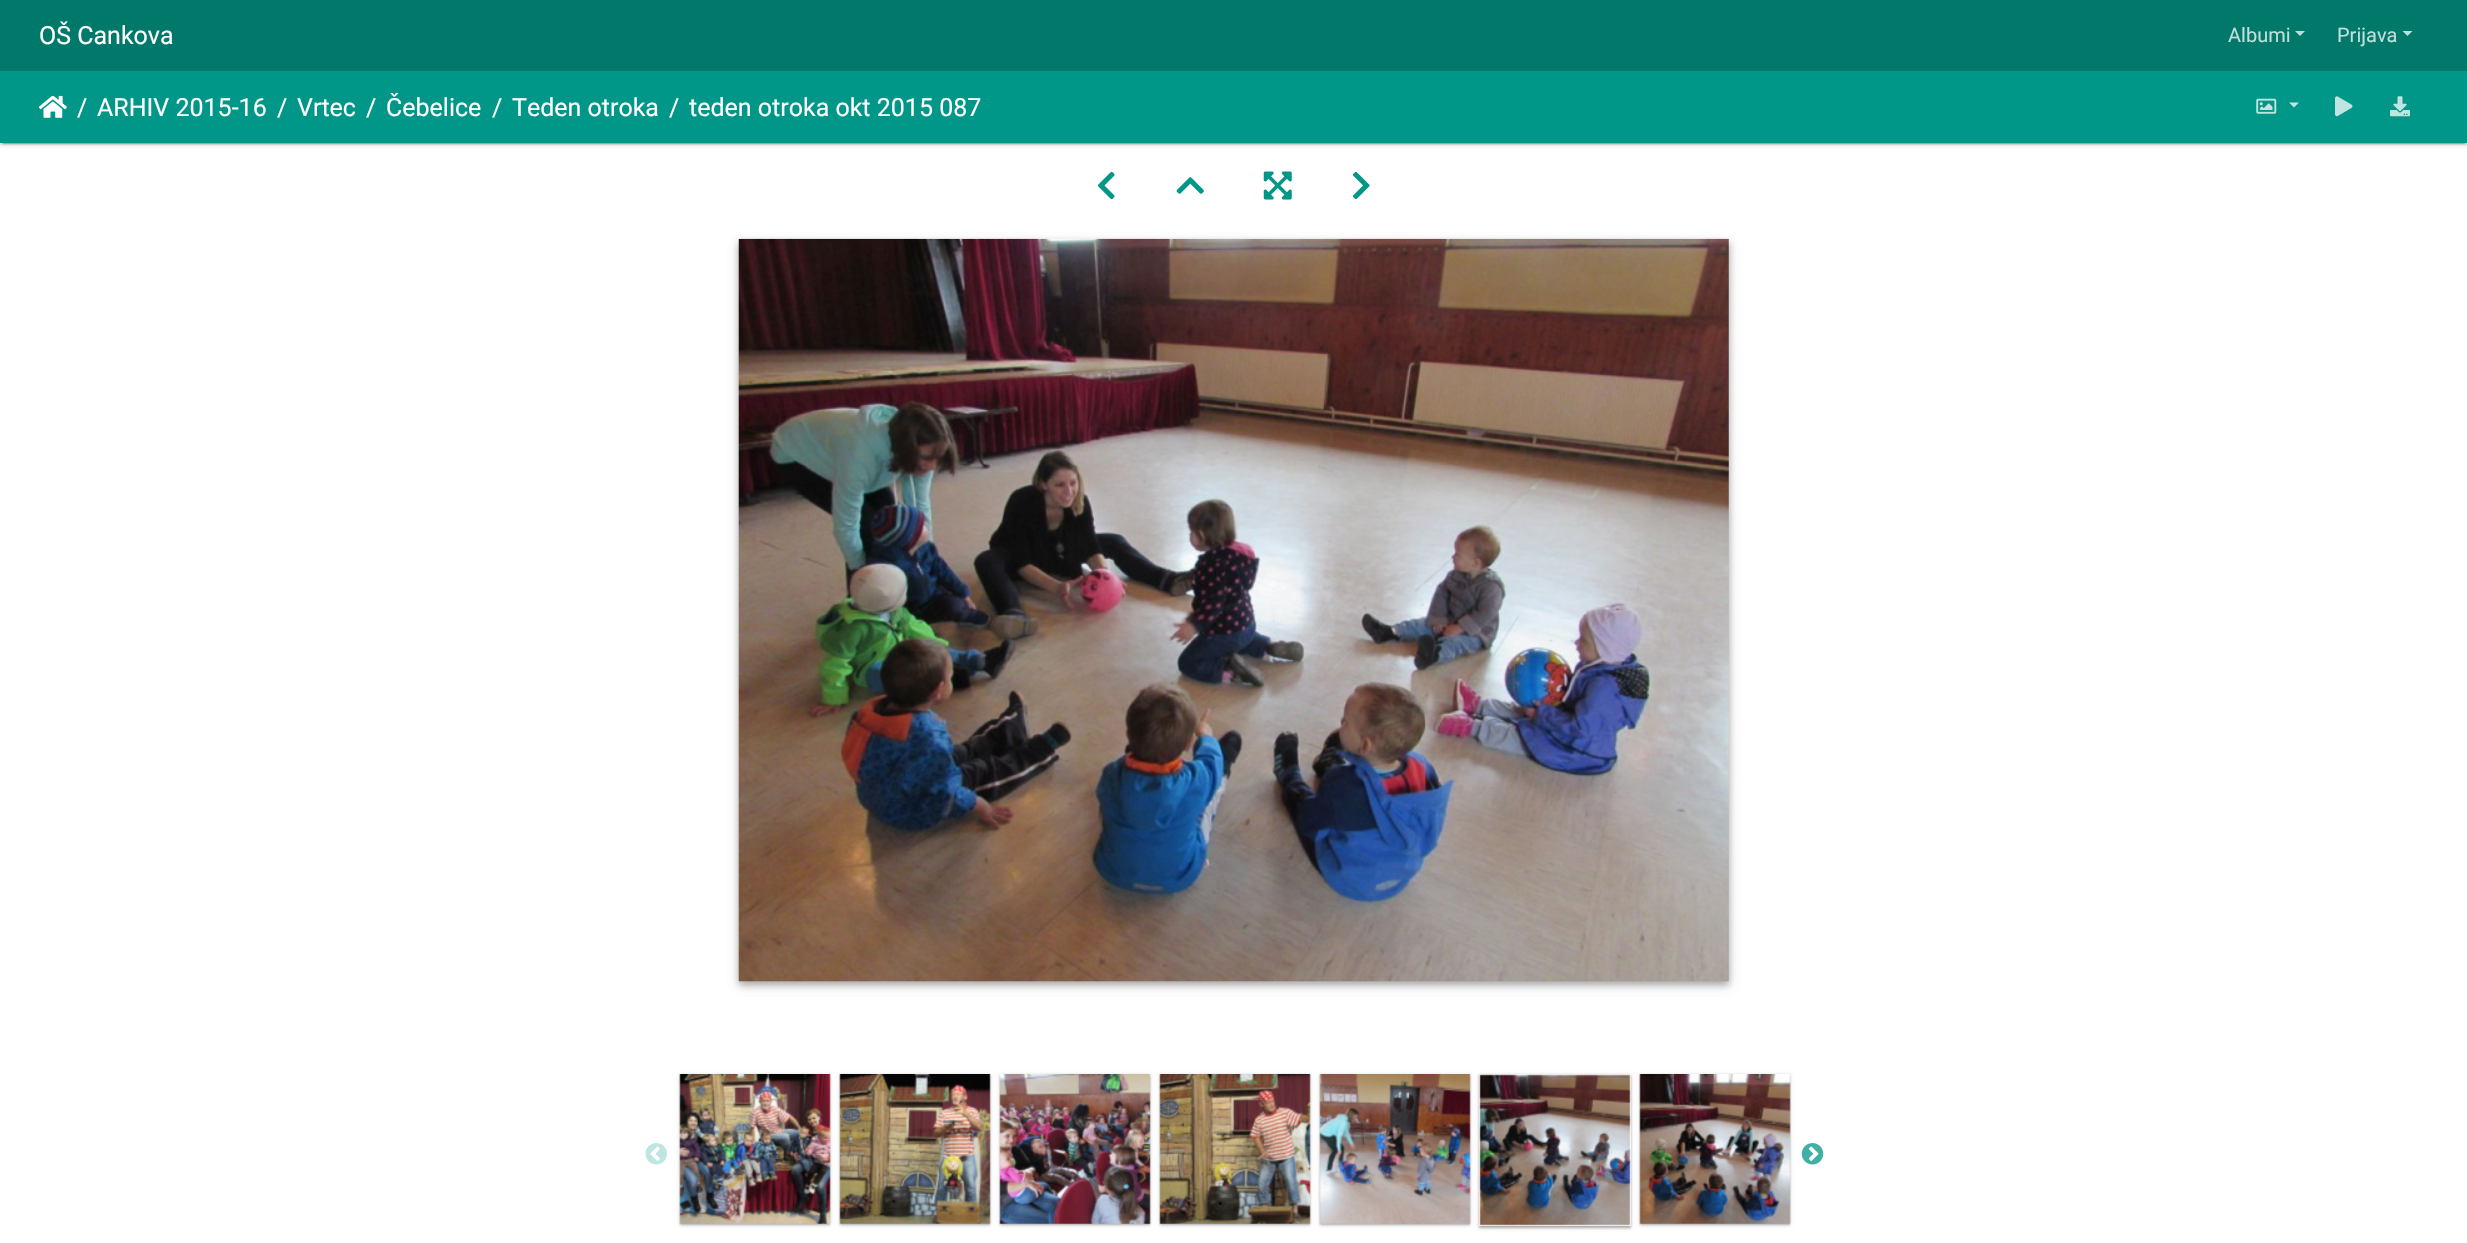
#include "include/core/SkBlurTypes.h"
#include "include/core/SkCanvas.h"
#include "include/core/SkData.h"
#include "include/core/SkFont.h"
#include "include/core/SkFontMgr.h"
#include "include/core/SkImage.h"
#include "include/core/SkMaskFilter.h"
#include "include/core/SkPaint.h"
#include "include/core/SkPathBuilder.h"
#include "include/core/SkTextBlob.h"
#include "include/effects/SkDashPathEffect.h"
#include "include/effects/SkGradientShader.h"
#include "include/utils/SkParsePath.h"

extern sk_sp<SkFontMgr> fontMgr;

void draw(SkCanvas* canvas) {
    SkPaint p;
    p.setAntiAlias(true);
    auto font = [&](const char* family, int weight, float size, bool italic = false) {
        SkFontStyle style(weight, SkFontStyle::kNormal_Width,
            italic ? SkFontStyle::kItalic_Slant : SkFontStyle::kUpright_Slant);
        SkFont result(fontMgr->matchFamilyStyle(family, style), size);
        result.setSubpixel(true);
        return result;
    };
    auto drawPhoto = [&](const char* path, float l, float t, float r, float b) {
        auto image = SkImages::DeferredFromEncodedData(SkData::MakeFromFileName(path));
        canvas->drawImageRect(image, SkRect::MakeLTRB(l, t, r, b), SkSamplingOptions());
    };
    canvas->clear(0xFFFFFFFF);
    p.setColor(0x1F000000);
    p.setMaskFilter(SkMaskFilter::MakeBlur(kNormal_SkBlurStyle, 3));
    canvas->drawRect(SkRect::MakeLTRB(0, 73, 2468, 144), p);
    p.setMaskFilter(nullptr);
    p.setColor(0x24000000);
    p.setMaskFilter(SkMaskFilter::MakeBlur(kNormal_SkBlurStyle, 1));
    canvas->drawRect(SkRect::MakeLTRB(0, 74, 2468, 145), p);
    p.setMaskFilter(nullptr);
    p.setColor(0xFF00796B);
    canvas->drawRect(SkRect::MakeLTRB(0, 0, 2467, 71), p);
    auto font1 = font("Roboto", 400, 25);
    p.setColor(0xFFFFFFFF);
    canvas->drawString("OŠ Cankova", 39, 44, font1, p);
    auto font2 = font("Roboto", 400, 20);
    p.setColor(0xFFBFDEDA);
    canvas->drawString("Albumi", 2228, 42, font2, p);
    canvas->drawPath(SkPathBuilder().moveTo(2295, 31).lineTo(2305, 31).lineTo(2300, 36).close().detach(), p);
    canvas->drawString("Prijava", 2337, 42, font2, p);
    canvas->drawPath(SkPathBuilder().moveTo(2402.5f, 31).lineTo(2412.5f, 31).lineTo(2407.5f, 36).close().detach(), p);
    p.setColor(0x33000000);
    p.setMaskFilter(SkMaskFilter::MakeBlur(kNormal_SkBlurStyle, 0.5f));
    canvas->drawRect(SkRect::MakeLTRB(3, 78, 2465, 144), p);
    p.setMaskFilter(nullptr);
    p.setColor(0xFF009688);
    canvas->drawRect(SkRect::MakeLTRB(0, 71, 2467, 143), p);
    drawPhoto("media/1.png", 39, 95, 67, 118);
    p.setColor(0xFFFFFFFF);
    {
        const struct { const char* s; float x, y; } items[] = {
            {"/", 77, 116},
            {"ARHIV 2015-16", 97, 116},
            {"/", 277, 116},
            {"Vrtec", 297, 116},
            {"/", 366, 116},
            {"Čebelice", 386, 116},
            {"/", 492, 116},
            {"Teden otroka", 512, 116},
            {"/", 669, 116},
            {"teden otroka okt 2015 087", 689, 116},
        };
        for (auto [s, x, y] : items) {
            canvas->drawString(s, x, y, font1, p);
        }
    }
    drawPhoto("media/2.png", 2256, 98, 2277, 114);
    p.setColor(0xFFBFE5E1);
    canvas->drawPath(SkPathBuilder().moveTo(2289, 102.5f).lineTo(2299, 102.5f).lineTo(2294, 107.5f).close().detach(), p);
    drawPhoto("media/3.png", 2335, 96, 2353, 117);
    drawPhoto("media/4.png", 2390, 96, 2410, 117);
    drawPhoto("media/5.png", 1098, 171, 1115, 200);
    drawPhoto("media/6.png", 1176, 177, 1204, 194);
    drawPhoto("media/7.png", 1263, 171, 1292, 200);
    drawPhoto("media/8.png", 1353, 171, 1370, 200);
    p.setColor(0x3B000000);
    p.setMaskFilter(SkMaskFilter::MakeBlur(kNormal_SkBlurStyle, 4));
    canvas->drawRect(SkRect::MakeLTRB(739, 243, 1729, 985), p);
    p.setMaskFilter(nullptr);
    p.setColor(0x29000000);
    p.setMaskFilter(SkMaskFilter::MakeBlur(kNormal_SkBlurStyle, 4));
    canvas->drawRect(SkRect::MakeLTRB(739, 243, 1729, 985), p);
    p.setMaskFilter(nullptr);
    drawPhoto("media/9.png", 738, 238, 1729, 982);
    drawPhoto("media/10.png", 645, 1143, 667, 1165);
    p.setColor(0x1F000000);
    p.setMaskFilter(SkMaskFilter::MakeBlur(kNormal_SkBlurStyle, 2));
    canvas->drawRect(SkRect::MakeLTRB(680, 1075, 830, 1225), p);
    p.setMaskFilter(nullptr);
    p.setColor(0x3D000000);
    p.setMaskFilter(SkMaskFilter::MakeBlur(kNormal_SkBlurStyle, 1));
    canvas->drawRect(SkRect::MakeLTRB(680, 1075, 830, 1225), p);
    p.setMaskFilter(nullptr);
    drawPhoto("media/11.png", 679, 1074, 831, 1224);
    p.setColor(0x1F000000);
    p.setMaskFilter(SkMaskFilter::MakeBlur(kNormal_SkBlurStyle, 2));
    canvas->drawRect(SkRect::MakeLTRB(840, 1075, 990, 1225), p);
    p.setMaskFilter(nullptr);
    p.setColor(0x3D000000);
    p.setMaskFilter(SkMaskFilter::MakeBlur(kNormal_SkBlurStyle, 1));
    canvas->drawRect(SkRect::MakeLTRB(840, 1075, 990, 1225), p);
    p.setMaskFilter(nullptr);
    drawPhoto("media/12.png", 839, 1074, 991, 1224);
    p.setColor(0x1F000000);
    p.setMaskFilter(SkMaskFilter::MakeBlur(kNormal_SkBlurStyle, 2));
    canvas->drawRect(SkRect::MakeLTRB(1000, 1075, 1150, 1225), p);
    p.setMaskFilter(nullptr);
    p.setColor(0x3D000000);
    p.setMaskFilter(SkMaskFilter::MakeBlur(kNormal_SkBlurStyle, 1));
    canvas->drawRect(SkRect::MakeLTRB(1000, 1075, 1150, 1225), p);
    p.setMaskFilter(nullptr);
    drawPhoto("media/13.png", 999, 1074, 1151, 1224);
    p.setColor(0x1F000000);
    p.setMaskFilter(SkMaskFilter::MakeBlur(kNormal_SkBlurStyle, 2));
    canvas->drawRect(SkRect::MakeLTRB(1160, 1075, 1310, 1225), p);
    p.setMaskFilter(nullptr);
    p.setColor(0x3D000000);
    p.setMaskFilter(SkMaskFilter::MakeBlur(kNormal_SkBlurStyle, 1));
    canvas->drawRect(SkRect::MakeLTRB(1160, 1075, 1310, 1225), p);
    p.setMaskFilter(nullptr);
    drawPhoto("media/14.png", 1159, 1074, 1311, 1224);
    p.setColor(0x1F000000);
    p.setMaskFilter(SkMaskFilter::MakeBlur(kNormal_SkBlurStyle, 2));
    canvas->drawRect(SkRect::MakeLTRB(1320, 1075, 1470, 1225), p);
    p.setMaskFilter(nullptr);
    p.setColor(0x3D000000);
    p.setMaskFilter(SkMaskFilter::MakeBlur(kNormal_SkBlurStyle, 1));
    canvas->drawRect(SkRect::MakeLTRB(1320, 1075, 1470, 1225), p);
    p.setMaskFilter(nullptr);
    drawPhoto("media/15.png", 1319, 1074, 1471, 1224);
    canvas->save();
    canvas->clipPath(SkPathBuilder(SkPathFillType::kEvenOdd).moveTo(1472, 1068).lineTo(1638, 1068).lineTo(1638, 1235).lineTo(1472, 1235).close().moveTo(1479, 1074).lineTo(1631, 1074).lineTo(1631, 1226).lineTo(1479, 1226).close().detach(), true);
    p.setColor(0x1F000000);
    p.setMaskFilter(SkMaskFilter::MakeBlur(kNormal_SkBlurStyle, 2));
    canvas->drawRect(SkRect::MakeLTRB(1479, 1075, 1631, 1228), p);
    p.setMaskFilter(nullptr);
    canvas->restore();
    canvas->save();
    canvas->clipPath(SkPathBuilder(SkPathFillType::kEvenOdd).moveTo(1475, 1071).lineTo(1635, 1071).lineTo(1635, 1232).lineTo(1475, 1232).close().moveTo(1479, 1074).lineTo(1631, 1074).lineTo(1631, 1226).lineTo(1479, 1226).close().detach(), true);
    p.setColor(0x3D000000);
    p.setMaskFilter(SkMaskFilter::MakeBlur(kNormal_SkBlurStyle, 1));
    canvas->drawRect(SkRect::MakeLTRB(1479, 1075, 1631, 1228), p);
    p.setMaskFilter(nullptr);
    canvas->restore();
    drawPhoto("media/16.png", 1479, 1074, 1631, 1226);
    p.setColor(0x1F000000);
    p.setMaskFilter(SkMaskFilter::MakeBlur(kNormal_SkBlurStyle, 2));
    canvas->drawRect(SkRect::MakeLTRB(1640, 1075, 1790, 1225), p);
    p.setMaskFilter(nullptr);
    p.setColor(0x3D000000);
    p.setMaskFilter(SkMaskFilter::MakeBlur(kNormal_SkBlurStyle, 1));
    canvas->drawRect(SkRect::MakeLTRB(1640, 1075, 1790, 1225), p);
    p.setMaskFilter(nullptr);
    drawPhoto("media/17.png", 1639, 1074, 1791, 1224);
    drawPhoto("media/18.png", 1801, 1143, 1824, 1165);
}
